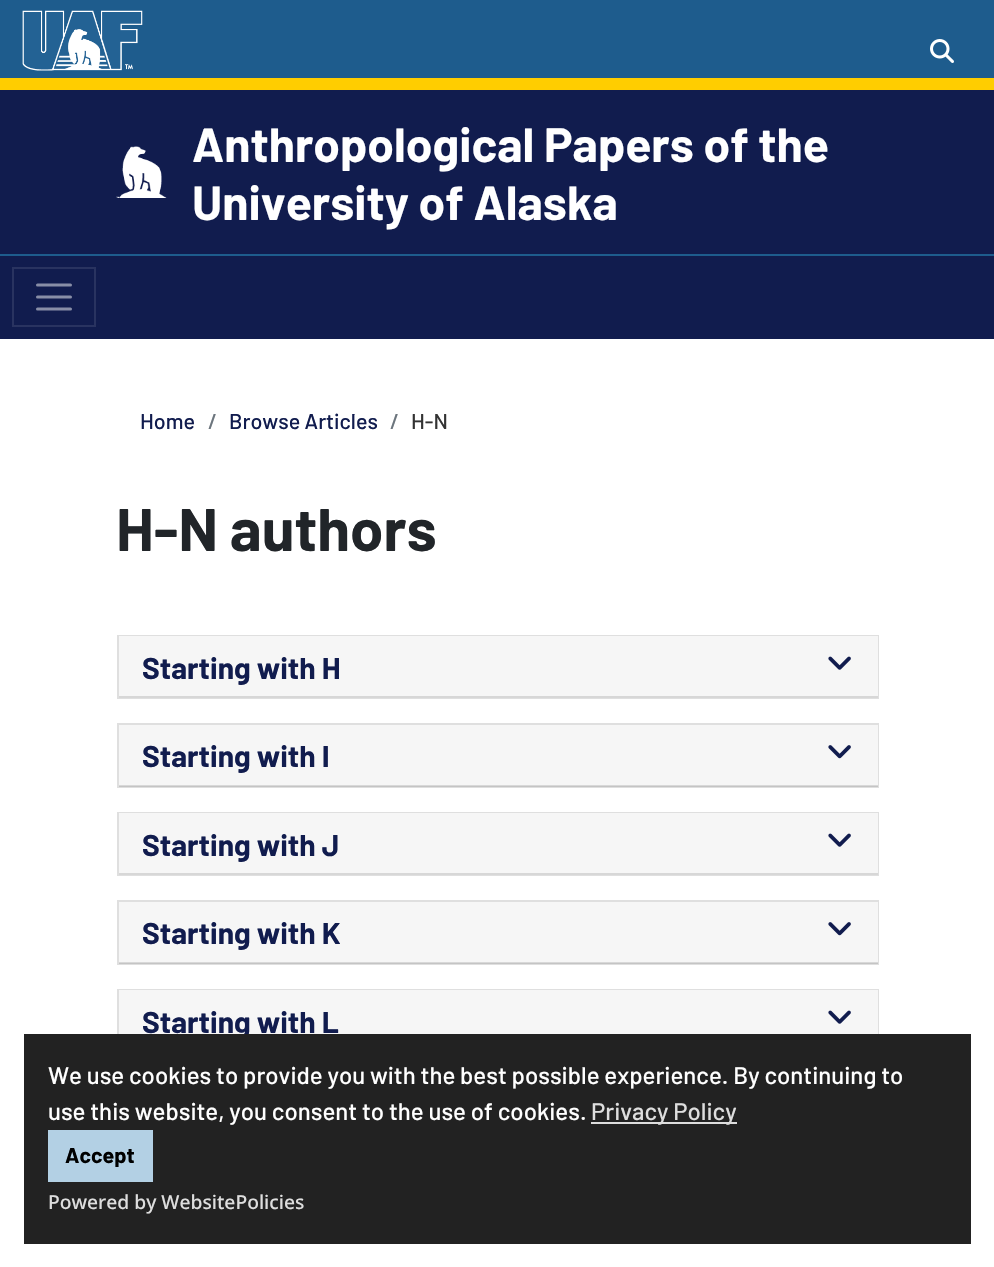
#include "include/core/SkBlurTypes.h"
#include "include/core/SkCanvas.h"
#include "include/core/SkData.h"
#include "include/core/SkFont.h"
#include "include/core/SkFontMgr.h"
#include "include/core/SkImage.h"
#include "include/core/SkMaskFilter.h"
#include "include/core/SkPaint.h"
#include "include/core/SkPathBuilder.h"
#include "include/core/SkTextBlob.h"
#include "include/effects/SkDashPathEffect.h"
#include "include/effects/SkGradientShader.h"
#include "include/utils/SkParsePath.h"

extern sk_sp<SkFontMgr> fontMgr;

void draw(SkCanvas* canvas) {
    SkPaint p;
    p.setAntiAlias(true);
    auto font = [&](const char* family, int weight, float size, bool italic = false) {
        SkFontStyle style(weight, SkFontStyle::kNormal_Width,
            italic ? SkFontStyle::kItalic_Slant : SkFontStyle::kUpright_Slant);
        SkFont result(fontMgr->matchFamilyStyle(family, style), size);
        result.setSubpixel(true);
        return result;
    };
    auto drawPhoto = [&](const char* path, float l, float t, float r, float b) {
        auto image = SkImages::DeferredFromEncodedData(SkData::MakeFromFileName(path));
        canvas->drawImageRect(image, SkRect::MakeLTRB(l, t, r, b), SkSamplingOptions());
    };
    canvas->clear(0xFFFFFFFF);
    p.setColor(0xFF1E5C8D);
    canvas->drawRect(SkRect::MakeLTRB(0, 0, 994, 78), p);
    drawPhoto("media/1.png", 22, 10, 143, 71);
    drawPhoto("media/2.png", 930, 39, 954, 63);
    p.setColor(0xFF111C4E);
    canvas->drawRect(SkRect::MakeLTRB(0, 90, 994, 254), p);
    p.setColor(0xFFFFCD00);
    canvas->drawRect(SkRect::MakeLTRB(0, 78, 994, 90), p);
    drawPhoto("media/3.png", 116, 146, 167, 198);
    auto font1 = font("Barlow", 700, 48);
    p.setColor(0xFFFFFFFF);
    canvas->drawString("Anthropological Papers of the", 192, 162, font1, p);
    canvas->drawString("University of Alaska", 192, 220, font1, p);
    p.setColor(0xFF111C4E);
    canvas->drawRect(SkRect::MakeLTRB(0, 256, 994, 339), p);
    p.setColor(0xFF1E5C8D);
    canvas->drawRect(SkRect::MakeLTRB(0, 254, 994, 256), p);
    p.setStyle(SkPaint::kStroke_Style);
    p.setStrokeWidth(2);
    p.setColor(0xFF293360);
    canvas->drawRect(SkRect::MakeLTRB(13, 268, 95, 326), p);
    p.setStrokeWidth(3);
    p.setStrokeCap(SkPaint::kRound_Cap);
    p.setColor(0xFF888EA7);
    canvas->drawPath(SkPathBuilder().moveTo(37.5f, 285).lineTo(70.5f, 285).moveTo(37.5f, 297).lineTo(70.5f, 297).moveTo(37.5f, 309).lineTo(70.5f, 309).detach(), p);
    auto font2 = font("Barlow", 500, 21.5f);
    p.setStyle(SkPaint::kFill_Style);
    p.setColor(0xFF111C4E);
    canvas->drawString("Home", 140, 429, font2, p);
    p.setColor(0xFF6C757D);
    canvas->drawString("/", 208, 429, font2, p);
    p.setColor(0xFF111C4E);
    canvas->drawString("Browse Articles", 229, 429, font2, p);
    p.setColor(0xFF6C757D);
    canvas->drawString("/", 390, 429, font2, p);
    p.setColor(0xFF333333);
    canvas->drawString("H-N", 411, 429, font2, p);
    auto font3 = font("Barlow", 700, 60);
    p.setColor(0xFF212529);
    canvas->drawString("H-N authors", 116, 551, font3, p);
    p.setStyle(SkPaint::kStroke_Style);
    p.setStrokeWidth(2);
    p.setStrokeCap(SkPaint::kButt_Cap);
    p.setColor(0xFFDFDFDF);
    canvas->drawRect(SkRect::MakeLTRB(118, 636, 878, 698), p);
    p.setStyle(SkPaint::kFill_Style);
    p.setColor(0xFFF6F6F6);
    canvas->drawRect(SkRect::MakeLTRB(119, 636, 878, 696), p);
    p.setColor(0xFFD7D7D7);
    canvas->drawRect(SkRect::MakeLTRB(119, 696, 878, 698), p);
    auto font4 = font("Barlow", 700, 30);
    p.setColor(0xFF111C4E);
    canvas->drawString("Starting with H", 142, 679, font4, p);
    drawPhoto("media/4.png", 828, 656, 851, 670);
    p.setStyle(SkPaint::kStroke_Style);
    p.setColor(0xFFDFDFDF);
    canvas->drawRect(SkRect::MakeLTRB(118, 724, 878, 787), p);
    p.setStyle(SkPaint::kFill_Style);
    p.setColor(0xFFF6F6F6);
    canvas->drawRect(SkRect::MakeLTRB(119, 725, 878, 786), p);
    p.setColor(0x1F000000);
    canvas->drawRect(SkRect::MakeLTRB(119, 785, 878, 787), p);
    p.setColor(0xFF111C4E);
    canvas->drawString("Starting with I", 142, 767, font4, p);
    drawPhoto("media/5.png", 828, 745, 851, 759);
    p.setStyle(SkPaint::kStroke_Style);
    p.setColor(0xFFDFDFDF);
    canvas->drawRect(SkRect::MakeLTRB(118, 813, 878, 875), p);
    p.setStyle(SkPaint::kFill_Style);
    p.setColor(0xFFF6F6F6);
    canvas->drawRect(SkRect::MakeLTRB(119, 813, 878, 873), p);
    p.setColor(0xFFD7D7D7);
    canvas->drawRect(SkRect::MakeLTRB(119, 873, 878, 875), p);
    p.setColor(0xFF111C4E);
    canvas->drawString("Starting with J", 142, 856, font4, p);
    drawPhoto("media/4.png", 828, 833, 851, 847);
    p.setStyle(SkPaint::kStroke_Style);
    p.setColor(0xFFDFDFDF);
    canvas->drawRect(SkRect::MakeLTRB(118, 901, 878, 964), p);
    p.setStyle(SkPaint::kFill_Style);
    p.setColor(0xFFF6F6F6);
    canvas->drawRect(SkRect::MakeLTRB(119, 902, 878, 963), p);
    p.setColor(0x1F000000);
    canvas->drawRect(SkRect::MakeLTRB(119, 962, 878, 964), p);
    p.setColor(0xFF111C4E);
    canvas->drawString("Starting with K", 142, 944, font4, p);
    drawPhoto("media/5.png", 828, 922, 851, 936);
    p.setStyle(SkPaint::kStroke_Style);
    p.setColor(0xFFDFDFDF);
    canvas->drawRect(SkRect::MakeLTRB(118, 990, 878, 1052), p);
    p.setStyle(SkPaint::kFill_Style);
    p.setColor(0xFFF6F6F6);
    canvas->drawRect(SkRect::MakeLTRB(119, 990, 878, 1034), p);
    p.setColor(0xFF111C4E);
    canvas->drawString("Starting with L", 142, 1033, font4, p);
    drawPhoto("media/4.png", 828, 1010, 851, 1024);
    p.setColor(0xFF222222);
    canvas->drawRect(SkRect::MakeLTRB(24, 1034, 971, 1244), p);
    auto font5 = font("Barlow", 500, 24);
    p.setColor(0xFFFFFFFF);
    canvas->drawString("We use cookies to provide you with the best possible experience. By continuing to", 48, 1084, font5, p);
    canvas->drawString("use this website, you consent to the use of cookies.", 48, 1120, font5, p);
    p.setColor(0xFFDEDEDE);
    canvas->drawRect(SkRect::MakeLTRB(591, 1122, 737, 1124), p);
    canvas->drawString("Privacy Policy", 591, 1120, font5, p);
    p.setColor(0xFFB3D0E4);
    canvas->drawRect(SkRect::MakeLTRB(48, 1130, 153, 1182), p);
    auto font6 = font("Barlow", 700, 21.5f);
    p.setColor(0xFF000000);
    canvas->drawString("Accept", 65, 1163, font6, p);
    auto font7 = font("Noto Sans", 500, 19.25f);
    p.setColor(0xFFDEDEDE);
    canvas->drawString("Powered by WebsitePolicies", 48, 1209, font7, p);
}
